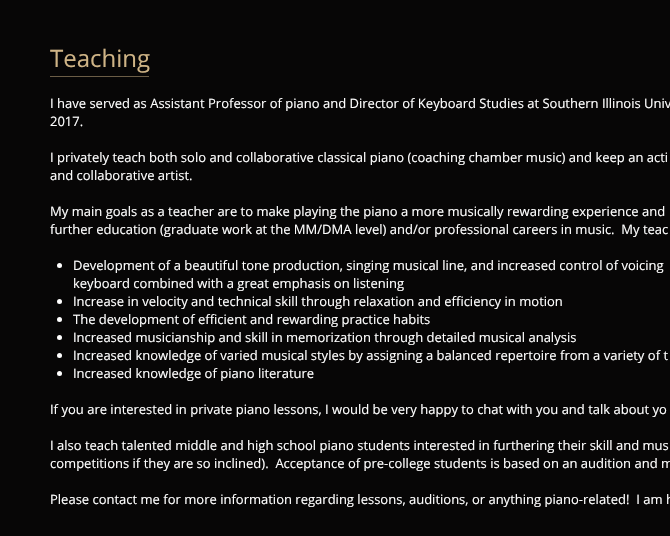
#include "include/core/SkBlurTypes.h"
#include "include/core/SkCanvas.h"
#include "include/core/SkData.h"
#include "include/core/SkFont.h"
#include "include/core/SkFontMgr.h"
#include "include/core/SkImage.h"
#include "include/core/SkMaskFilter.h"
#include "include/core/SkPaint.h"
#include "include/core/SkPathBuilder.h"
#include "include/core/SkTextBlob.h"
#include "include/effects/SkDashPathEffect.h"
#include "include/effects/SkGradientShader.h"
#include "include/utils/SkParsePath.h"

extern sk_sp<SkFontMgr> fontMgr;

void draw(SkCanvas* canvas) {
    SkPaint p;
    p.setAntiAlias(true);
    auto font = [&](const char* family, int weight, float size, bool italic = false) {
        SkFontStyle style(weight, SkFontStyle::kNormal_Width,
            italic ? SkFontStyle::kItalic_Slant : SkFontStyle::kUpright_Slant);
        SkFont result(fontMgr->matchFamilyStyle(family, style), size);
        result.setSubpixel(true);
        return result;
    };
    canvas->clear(0xFF070606);
    auto font1 = font("Open Sans", 400, 24);
    p.setColor(0xFFCFB486);
    canvas->drawString("Teaching", 50, 67, font1, p);
    p.setColor(0xFF6B5D46);
    canvas->drawRect(SkRect::MakeLTRB(50, 76, 149, 77), p);
    auto font2 = font("Open Sans", 400, 13);
    p.setColor(0xFFFFFFFF);
    {
        const struct { const char* s; float x, y; } items[] = {
            {"I have served as Assistant Professor of piano and Director of Keyboard Studies at Southern Illinois Univ", 50, 108},
            {"2017.", 50, 126},
            {"I privately teach both solo and collaborative classical piano (coaching chamber music) and keep an acti", 50, 162},
            {"and collaborative artist.", 50, 180},
            {"My main goals as a teacher are to make playing the piano a more musically rewarding experience and", 50, 216},
            {"further education (graduate work at the MM/DMA level) and/or professional careers in music.  My teac", 50, 234},
        };
        for (auto [s, x, y] : items) {
            canvas->drawString(s, x, y, font2, p);
        }
    }
    canvas->drawCircle(59.5f, 265.5f, 2.5f, p);
    canvas->drawString("Development of a beautiful tone production, singing musical line, and increased control of voicing", 73, 270, font2, p);
    canvas->drawString("keyboard combined with a great emphasis on listening", 73, 288, font2, p);
    canvas->drawCircle(59.5f, 301.5f, 2.5f, p);
    canvas->drawString("Increase in velocity and technical skill through relaxation and efficiency in motion", 73, 306, font2, p);
    canvas->drawCircle(59.5f, 319.5f, 2.5f, p);
    canvas->drawString("The development of efficient and rewarding practice habits", 73, 324, font2, p);
    canvas->drawCircle(59.5f, 337.5f, 2.5f, p);
    canvas->drawString("Increased musicianship and skill in memorization through detailed musical analysis", 73, 342, font2, p);
    canvas->drawCircle(59.5f, 355.5f, 2.5f, p);
    canvas->drawString("Increased knowledge of varied musical styles by assigning a balanced repertoire from a variety of t", 73, 360, font2, p);
    canvas->drawCircle(59.5f, 373.5f, 2.5f, p);
    {
        const struct { const char* s; float x, y; } items[] = {
            {"Increased knowledge of piano literature", 73, 378},
            {"If you are interested in private piano lessons, I would be very happy to chat with you and talk about yo", 50, 414},
            {"I also teach talented middle and high school piano students interested in furthering their skill and mus", 50, 450},
            {"competitions if they are so inclined).  Acceptance of pre-college students is based on an audition and m", 50, 468},
            {"Please contact me for more information regarding lessons, auditions, or anything piano-related!  I am h", 50, 504},
        };
        for (auto [s, x, y] : items) {
            canvas->drawString(s, x, y, font2, p);
        }
    }
}
